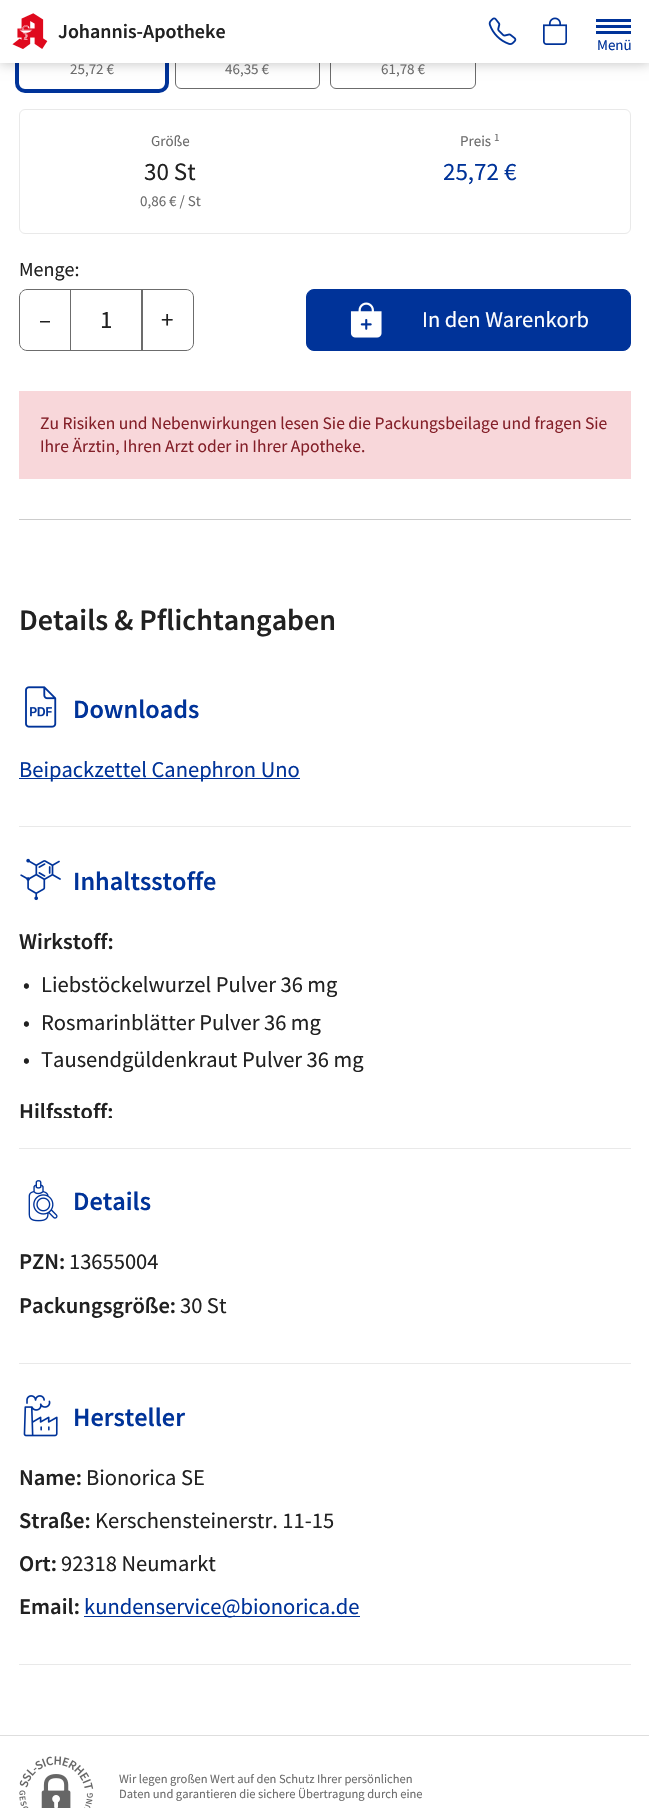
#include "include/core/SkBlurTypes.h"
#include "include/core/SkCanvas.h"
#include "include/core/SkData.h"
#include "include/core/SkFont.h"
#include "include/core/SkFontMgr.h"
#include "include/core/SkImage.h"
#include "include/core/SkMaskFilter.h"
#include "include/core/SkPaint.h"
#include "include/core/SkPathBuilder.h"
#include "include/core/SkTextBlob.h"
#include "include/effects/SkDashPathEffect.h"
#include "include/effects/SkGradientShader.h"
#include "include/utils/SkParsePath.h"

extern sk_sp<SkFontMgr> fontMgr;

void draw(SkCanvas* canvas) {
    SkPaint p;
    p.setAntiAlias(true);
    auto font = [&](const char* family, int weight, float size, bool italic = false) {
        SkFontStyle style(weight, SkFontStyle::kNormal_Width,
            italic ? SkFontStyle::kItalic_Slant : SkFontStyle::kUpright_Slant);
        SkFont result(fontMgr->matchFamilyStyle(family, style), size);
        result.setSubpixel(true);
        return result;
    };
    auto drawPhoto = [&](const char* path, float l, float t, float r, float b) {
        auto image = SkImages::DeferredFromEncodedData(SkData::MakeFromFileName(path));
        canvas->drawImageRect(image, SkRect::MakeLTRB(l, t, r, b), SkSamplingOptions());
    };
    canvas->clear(0xFFFFFFFF);
    p.setStyle(SkPaint::kStroke_Style);
    p.setStrokeWidth(4);
    p.setColor(0xFF003399);
    canvas->drawRoundRect(SkRect::MakeLTRB(17, 15, 167, 91), 8, 8, p);
    p.setStrokeWidth(1);
    p.setColor(0xFF6C6C6C);
    canvas->drawRoundRect(SkRect::MakeLTRB(175.5f, 16.5f, 319.5f, 88.5f), 5.5f, 5.5f, p);
    canvas->drawRoundRect(SkRect::MakeLTRB(330.5f, 16.5f, 475.5f, 88.5f), 5.5f, 5.5f, p);
    p.setStyle(SkPaint::kFill_Style);
    p.setColor(0x40000000);
    p.setMaskFilter(SkMaskFilter::MakeBlur(kNormal_SkBlurStyle, 6));
    canvas->drawRect(SkRect::MakeLTRB(0, 0, 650, 63), p);
    p.setMaskFilter(nullptr);
    p.setColor(0xFFFFFFFF);
    canvas->drawRect(SkRect::MakeLTRB(0, 0, 649, 63), p);
    drawPhoto("media/1.png", 12, 13, 48, 49);
    auto font1 = font("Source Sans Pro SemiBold", 600, 20);
    p.setColor(0xFF212121);
    canvas->drawString("Johannis-Apotheke", 58, 38, font1, p);
    drawPhoto("media/2.png", 488, 17, 517, 45);
    drawPhoto("media/3.png", 543, 17, 567, 45);
    {
        const struct { float l, t, r, b; SkColor color; } items[] = {
            {596, 25, 631, 28, 0xFF003399},
            {596, 19, 631, 22, 0xFF003399},
            {596, 31, 631, 34, 0xFF003399},
        };
        for (auto [l, t, r, b, color] : items) {
            p.setColor(color);
            canvas->drawRect(SkRect::MakeLTRB(l, t, r, b), p);
        }
    }
    auto font2 = font("Source Sans Pro", 400, 15);
    canvas->drawString("Menü", 597, 50, font2, p);
    p.setColor(0xFF6C6C6C);
    {
        const struct { const char* s; float x, y; } items[] = {
            {"25,72 €", 70, 74},
            {"46,35 €", 225, 74},
            {"61,78 €", 381, 74},
        };
        for (auto [s, x, y] : items) {
            canvas->drawString(s, x, y, font2, p);
        }
    }
    p.setStyle(SkPaint::kStroke_Style);
    p.setColor(0xFFE9E9E9);
    canvas->drawRoundRect(SkRect::MakeLTRB(19.5f, 109.5f, 630.5f, 233.5f), 5.5f, 5.5f, p);
    p.setStyle(SkPaint::kFill_Style);
    p.setColor(0xFF6C6C6C);
    canvas->drawString("Größe", 151, 146, font2, p);
    auto font3 = font("Source Sans Pro", 400, 25);
    p.setColor(0xFF212121);
    canvas->drawString("30 St", 144, 180, font3, p);
    p.setColor(0xFF6C6C6C);
    canvas->drawString("0,86 € / St", 140, 206, font2, p);
    canvas->drawString("Preis", 460, 146, font2, p);
    auto font4 = font("Source Sans Pro", 400, 11);
    canvas->drawString("1", 494, 141, font4, p);
    p.setColor(0xFF003399);
    canvas->drawString("25,72 €", 443, 180, font3, p);
    auto font5 = font("Source Sans Pro", 400, 20);
    p.setColor(0xFF212121);
    canvas->drawString("Menge:", 19, 276, font5, p);
    p.setStyle(SkPaint::kStroke_Style);
    p.setColor(0xFF6C6C6C);
    canvas->drawRect(SkRect::MakeLTRB(70.5f, 289.5f, 142.5f, 350.5f), p);
    canvas->drawPath(SkPathBuilder().moveTo(27, 289.5f).lineTo(70.5f, 289.5f).lineTo(70.5f, 350.5f).lineTo(27, 350.5f).cubicTo(23, 350.5f, 19.5f, 347, 19.5f, 343).lineTo(19.5f, 297).cubicTo(19.5f, 293, 23, 289.5f, 27, 289.5f).close().detach(), p);
    p.setStyle(SkPaint::kFill_Style);
    p.setColor(0xFF212121);
    canvas->drawString("–", 39, 328, font3, p);
    canvas->drawString("1", 100, 328, font3, p);
    p.setStyle(SkPaint::kStroke_Style);
    p.setColor(0xFF6C6C6C);
    canvas->drawPath(SkPathBuilder().moveTo(141.5f, 289.5f).lineTo(186, 289.5f).cubicTo(190, 289.5f, 193.5f, 293, 193.5f, 297).lineTo(193.5f, 343).cubicTo(193.5f, 347, 190, 350.5f, 186, 350.5f).lineTo(141.5f, 350.5f).close().detach(), p);
    p.setStyle(SkPaint::kFill_Style);
    p.setColor(0xFF212121);
    canvas->drawString("+", 161, 328, font3, p);
    p.setColor(0xFF003399);
    canvas->drawRoundRect(SkRect::MakeLTRB(306.5f, 289.5f, 630.5f, 350.5f), 7.5f, 7.5f, p);
    p.setStyle(SkPaint::kStroke_Style);
    canvas->drawRoundRect(SkRect::MakeLTRB(306.5f, 289.5f, 630.5f, 350.5f), 7.5f, 7.5f, p);
    drawPhoto("media/4.png", 350, 302, 382, 338);
    auto font6 = font("Source Sans Pro", 400, 22.5f);
    p.setStyle(SkPaint::kFill_Style);
    p.setColor(0xFFFFFFFF);
    canvas->drawString("In den Warenkorb", 422, 327, font6, p);
    p.setColor(0xFFF8D7DA);
    canvas->drawRect(SkRect::MakeLTRB(19, 391, 631, 479), p);
    auto font7 = font("Source Sans Pro", 400, 17.5f);
    p.setColor(0xFF842029);
    canvas->drawString("Zu Risiken und Nebenwirkungen lesen Sie die Packungsbeilage und fragen Sie", 40, 429, font7, p);
    canvas->drawString("Ihre Ärztin, Ihren Arzt oder in Ihrer Apotheke.", 40, 452, font7, p);
    p.setColor(0xFFCCCCCC);
    canvas->drawRect(SkRect::MakeLTRB(19, 519, 631, 520), p);
    auto font8 = font("Source Sans Pro SemiBold", 600, 30);
    p.setColor(0xFF212121);
    canvas->drawString("Details & Pflichtangaben", 19, 630, font8, p);
    p.setColor(0xFFE9E9E9);
    canvas->drawRect(SkRect::MakeLTRB(19, 826, 631, 827), p);
    drawPhoto("media/5.png", 25, 686, 57, 728);
    auto font9 = font("Source Sans Pro SemiBold", 600, 26.25f);
    p.setColor(0xFF003399);
    canvas->drawString("Downloads", 73, 718, font9, p);
    canvas->drawRect(SkRect::MakeLTRB(19, 778, 300, 779), p);
    canvas->drawString("Beipackzettel Canephron Uno", 19, 777, font6, p);
    p.setColor(0xFFE9E9E9);
    canvas->drawRect(SkRect::MakeLTRB(19, 1148, 631, 1149), p);
    drawPhoto("media/6.png", 20, 858, 61, 901);
    p.setColor(0xFF003399);
    canvas->drawString("Inhaltsstoffe", 73, 890, font9, p);
    auto font10 = font("Source Sans Pro SemiBold", 600, 22.5f);
    p.setColor(0xFF212121);
    canvas->drawString("Wirkstoff:", 19, 949, font10, p);
    {
        const struct { const char* s; float x, y; } items[] = {
            {"•", 23, 992},
            {"Liebstöckelwurzel Pulver 36 mg", 41, 992},
            {"•", 23, 1030},
            {"Rosmarinblätter Pulver 36 mg", 41, 1030},
            {"•", 23, 1067},
            {"Tausendgüldenkraut Pulver 36 mg", 41, 1067},
        };
        for (auto [s, x, y] : items) {
            canvas->drawString(s, x, y, font6, p);
        }
    }
    canvas->save();
    canvas->clipRect(SkRect::MakeLTRB(19, 925, 631, 1118));
    canvas->drawString("Hilfsstoff:", 19, 1119, font10, p);
    canvas->restore();
    p.setColor(0xFFE9E9E9);
    canvas->drawRect(SkRect::MakeLTRB(19, 1363, 631, 1364), p);
    drawPhoto("media/7.png", 28, 1180, 58, 1222);
    p.setColor(0xFF003399);
    canvas->drawString("Details", 73, 1210, font9, p);
    p.setColor(0xFF212121);
    canvas->drawString("PZN:", 19, 1269, font10, p);
    canvas->drawString("13655004", 69, 1269, font6, p);
    canvas->drawString("Packungsgröße:", 19, 1313, font10, p);
    canvas->drawString("30 St", 180, 1313, font6, p);
    p.setColor(0xFFE9E9E9);
    canvas->drawRect(SkRect::MakeLTRB(19, 1664, 631, 1665), p);
    drawPhoto("media/8.png", 23, 1395, 58, 1437);
    p.setColor(0xFF003399);
    canvas->drawString("Hersteller", 73, 1426, font9, p);
    p.setColor(0xFF212121);
    canvas->drawString("Name:", 19, 1485, font10, p);
    canvas->drawString("Bionorica SE", 86, 1485, font6, p);
    canvas->drawString("Straße:", 19, 1528, font10, p);
    canvas->drawString("Kerschensteinerstr. 11-15", 95, 1528, font6, p);
    canvas->drawString("Ort:", 19, 1571, font10, p);
    canvas->drawString("92318 Neumarkt", 61, 1571, font6, p);
    canvas->drawString("Email:", 19, 1614, font10, p);
    p.setColor(0xFF003399);
    canvas->drawRect(SkRect::MakeLTRB(84, 1616, 360, 1617), p);
    canvas->drawString("kundenservice@bionorica.de", 84, 1614, font6, p);
    p.setColor(0xFFDEDEDE);
    canvas->drawRect(SkRect::MakeLTRB(0, 1735, 649, 1736), p);
    drawPhoto("media/9.png", 19, 1756, 94, 1808);
    auto font11 = font("Source Sans Pro", 400, 12.5f);
    p.setColor(0xFF6C6C6C);
    canvas->drawString("Wir legen großen Wert auf den Schutz Ihrer persönlichen", 119, 1783, font11, p);
    canvas->drawString("Daten und garantieren die sichere Übertragung durch eine", 119, 1798, font11, p);
}
